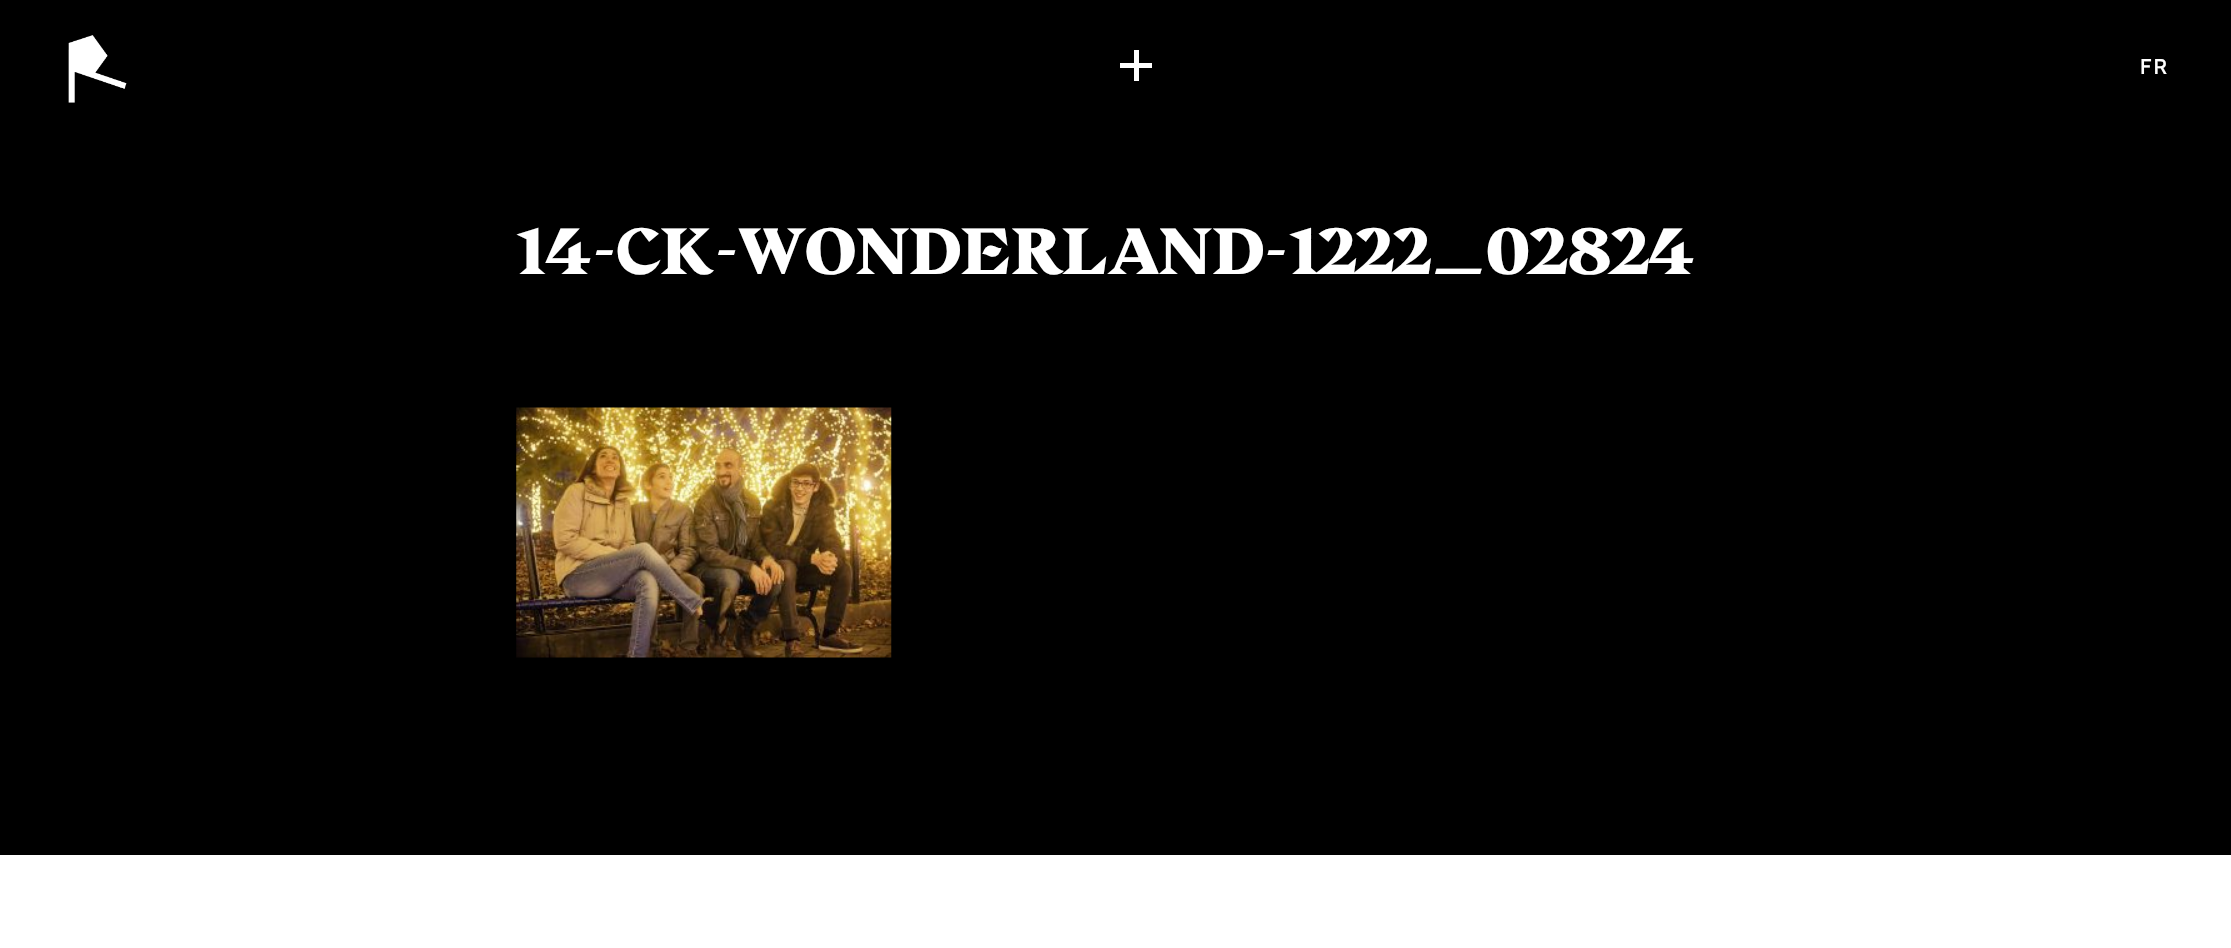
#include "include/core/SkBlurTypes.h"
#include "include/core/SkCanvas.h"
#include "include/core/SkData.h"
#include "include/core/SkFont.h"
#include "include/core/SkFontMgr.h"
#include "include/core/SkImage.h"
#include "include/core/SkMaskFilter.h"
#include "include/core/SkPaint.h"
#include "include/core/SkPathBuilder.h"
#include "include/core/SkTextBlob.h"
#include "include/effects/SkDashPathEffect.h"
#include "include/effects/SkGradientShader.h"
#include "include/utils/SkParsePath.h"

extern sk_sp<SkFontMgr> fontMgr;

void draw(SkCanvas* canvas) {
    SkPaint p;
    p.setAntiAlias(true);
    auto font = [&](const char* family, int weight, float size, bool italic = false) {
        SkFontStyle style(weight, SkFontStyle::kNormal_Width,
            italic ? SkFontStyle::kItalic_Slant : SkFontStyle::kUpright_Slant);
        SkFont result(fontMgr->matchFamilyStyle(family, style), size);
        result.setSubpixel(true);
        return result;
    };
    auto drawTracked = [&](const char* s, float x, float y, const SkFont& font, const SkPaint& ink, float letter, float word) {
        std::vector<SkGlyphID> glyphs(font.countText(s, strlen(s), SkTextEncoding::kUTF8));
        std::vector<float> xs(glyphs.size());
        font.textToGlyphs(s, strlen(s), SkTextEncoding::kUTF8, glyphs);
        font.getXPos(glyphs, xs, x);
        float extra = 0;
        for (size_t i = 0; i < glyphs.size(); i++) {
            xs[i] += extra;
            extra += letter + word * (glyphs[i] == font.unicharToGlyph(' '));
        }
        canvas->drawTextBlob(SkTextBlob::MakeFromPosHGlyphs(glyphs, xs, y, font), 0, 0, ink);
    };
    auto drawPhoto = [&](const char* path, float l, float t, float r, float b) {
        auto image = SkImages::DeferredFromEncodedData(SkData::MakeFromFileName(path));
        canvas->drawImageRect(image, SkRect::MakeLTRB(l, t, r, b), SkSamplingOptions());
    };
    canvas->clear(0xFF000000);
    drawPhoto("media/1.png", 68, 35, 127, 103);
    p.setColor(0xFFFFFFFF);
    canvas->drawRect(SkRect::MakeLTRB(1120, 63, 1152, 68), p);
    canvas->drawRect(SkRect::MakeLTRB(1134, 50, 1139, 81), p);
    auto font1 = font("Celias", 500, 20);
    drawTracked("FR", 2140, 74, font1, p, 2, 0);
    auto font2 = font("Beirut", 700, 67.5f);
    canvas->drawString("14-CK-WONDERLAND-1222_02824", 516, 274, font2, p);
    drawPhoto("media/2.png", 516, 407, 892, 658);
    canvas->drawRect(SkRect::MakeLTRB(0, 855, 2231, 948), p);
}
